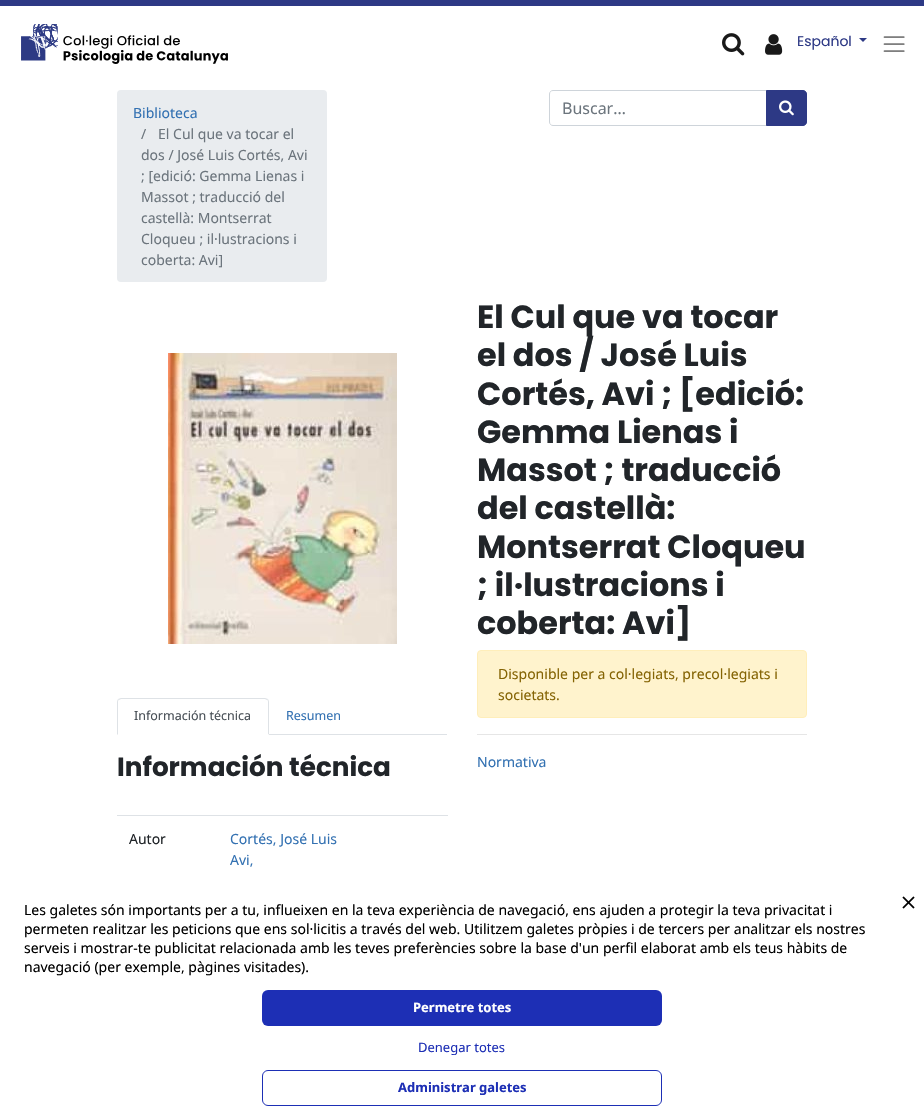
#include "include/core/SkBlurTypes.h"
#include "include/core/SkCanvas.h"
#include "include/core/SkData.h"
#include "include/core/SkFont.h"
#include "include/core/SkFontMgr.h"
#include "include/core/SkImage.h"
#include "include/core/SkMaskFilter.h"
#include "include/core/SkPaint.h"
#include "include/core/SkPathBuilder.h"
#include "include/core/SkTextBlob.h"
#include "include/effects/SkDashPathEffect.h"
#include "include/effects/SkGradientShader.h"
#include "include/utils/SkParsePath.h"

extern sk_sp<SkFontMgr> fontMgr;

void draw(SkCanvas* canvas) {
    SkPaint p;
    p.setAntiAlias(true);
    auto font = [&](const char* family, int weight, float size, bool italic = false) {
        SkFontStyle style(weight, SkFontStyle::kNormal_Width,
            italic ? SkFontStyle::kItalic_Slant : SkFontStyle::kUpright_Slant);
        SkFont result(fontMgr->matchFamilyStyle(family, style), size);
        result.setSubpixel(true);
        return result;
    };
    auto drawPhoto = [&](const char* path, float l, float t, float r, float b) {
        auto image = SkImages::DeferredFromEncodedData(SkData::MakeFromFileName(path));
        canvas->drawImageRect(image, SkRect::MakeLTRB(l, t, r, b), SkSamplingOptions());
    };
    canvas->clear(0xFFFFFFFF);
    p.setColor(0xFF2D3985);
    canvas->drawRect(SkRect::MakeLTRB(0, 0, 924, 6), p);
    drawPhoto("media/1.png", 21, 24, 228, 64);
    drawPhoto("media/2.png", 722, 33, 745, 56);
    drawPhoto("media/3.png", 765, 34, 783, 55);
    auto font1 = font("Poppins", 400, 14);
    canvas->drawString("Español", 797, 46, font1, p);
    canvas->drawPath(SkPathBuilder().moveTo(859, 38).lineTo(867, 38).lineTo(863, 42).close().detach(), p);
    drawPhoto("media/4.png", 883, 36, 905, 52);
    p.setColor(0xFFE9ECEF);
    canvas->drawRoundRect(SkRect::MakeLTRB(117, 90, 327, 282), 4, 4, p);
    auto font2 = font("Noto Sans", 400, 14);
    p.setColor(0xFF3371B2);
    canvas->drawString("Biblioteca", 133, 118, font2, p);
    p.setColor(0xFF6C757D);
    {
        const struct { const char* s; float x, y; } items[] = {
            {"/", 141, 139},
            {"El Cul que va tocar el", 158, 139},
            {"dos / José Luis Cortés, Avi", 141, 160},
            {"; [edició: Gemma Lienas i", 141, 181},
            {"Massot ; traducció del", 141, 202},
            {"castellà: Montserrat", 141, 223},
            {"Cloqueu ; il·lustracions i", 141, 244},
            {"coberta: Avi]", 141, 265},
        };
        for (auto [s, x, y] : items) {
            canvas->drawString(s, x, y, font2, p);
        }
    }
    p.setStyle(SkPaint::kStroke_Style);
    p.setStrokeWidth(1);
    p.setColor(0xFFCED4DA);
    canvas->drawPath(SkPathBuilder().moveTo(553, 90.5f).lineTo(766.5f, 90.5f).lineTo(766.5f, 125.5f).lineTo(553, 125.5f).cubicTo(551, 125.5f, 549.5f, 124, 549.5f, 122).lineTo(549.5f, 94).cubicTo(549.5f, 92, 551, 90.5f, 553, 90.5f).close().detach(), p);
    auto font3 = font("Noto Sans", 400, 16);
    p.setStyle(SkPaint::kFill_Style);
    p.setColor(0xFF6C757D);
    canvas->drawString("Buscar…", 562, 114, font3, p);
    p.setColor(0xFF2D3985);
    canvas->drawPath(SkPathBuilder().moveTo(766.5f, 90.5f).lineTo(803, 90.5f).cubicTo(805, 90.5f, 806.5f, 92, 806.5f, 94).lineTo(806.5f, 122).cubicTo(806.5f, 124, 805, 125.5f, 803, 125.5f).lineTo(766.5f, 125.5f).close().detach(), p);
    p.setStyle(SkPaint::kStroke_Style);
    canvas->drawPath(SkPathBuilder().moveTo(766.5f, 90.5f).lineTo(803, 90.5f).cubicTo(805, 90.5f, 806.5f, 92, 806.5f, 94).lineTo(806.5f, 122).cubicTo(806.5f, 124, 805, 125.5f, 803, 125.5f).lineTo(766.5f, 125.5f).close().detach(), p);
    drawPhoto("media/5.png", 779, 100, 794, 116);
    auto font4 = font("Poppins", 700, 31.9f);
    p.setStyle(SkPaint::kFill_Style);
    p.setColor(0xFF212529);
    {
        const struct { const char* s; float x, y; } items[] = {
            {"El Cul que va tocar", 477, 328},
            {"el dos / José Luis", 477, 366},
            {"Cortés, Avi ; [edició:", 477, 405},
            {"Gemma Lienas i", 477, 443},
            {"Massot ; traducció", 477, 481},
            {"del castellà:", 477, 519},
            {"Montserrat Cloqueu", 477, 558},
            {"; il·lustracions i", 477, 596},
            {"coberta: Avi]", 477, 634},
        };
        for (auto [s, x, y] : items) {
            canvas->drawString(s, x, y, font4, p);
        }
    }
    p.setColor(0xFFFFF3CD);
    canvas->drawRoundRect(SkRect::MakeLTRB(477.5f, 650.5f, 806.5f, 717.5f), 3.5f, 3.5f, p);
    p.setStyle(SkPaint::kStroke_Style);
    p.setColor(0xFFFFEEBA);
    canvas->drawRoundRect(SkRect::MakeLTRB(477.5f, 650.5f, 806.5f, 717.5f), 3.5f, 3.5f, p);
    p.setStyle(SkPaint::kFill_Style);
    p.setColor(0xFF856404);
    canvas->drawString("Disponible per a col·legiats, precol·legiats i", 498, 679, font2, p);
    canvas->drawString("societats.", 498, 700, font2, p);
    p.setColor(0xFFE6E6E6);
    canvas->drawRect(SkRect::MakeLTRB(477, 734, 807, 735), p);
    p.setColor(0xFF3371B2);
    canvas->drawString("Normativa", 477, 767, font2, p);
    drawPhoto("media/6.png", 168, 353, 397, 644);
    p.setColor(0xFFDEE2E6);
    canvas->drawRect(SkRect::MakeLTRB(269, 734, 447, 735), p);
    canvas->drawPath(SkPathBuilder().moveTo(121, 698).lineTo(118, 699).lineTo(119, 700).lineTo(121, 699).lineTo(265, 699).lineTo(267, 700).lineTo(268, 699).lineTo(265, 698).close().detach(), p);
    canvas->drawPath(SkPathBuilder().moveTo(269, 735).lineTo(269, 702).cubicTo(269, 701, 268.5f, 700, 268, 699).lineTo(267, 700).cubicTo(268, 700, 268, 701, 268, 702).lineTo(268, 734).close().detach(), p);
    p.setColor(0xFFFFFFFF);
    canvas->drawPath(SkPathBuilder().moveTo(269, 735).lineTo(268, 734).lineTo(118, 734).lineTo(117, 735).close().detach(), p);
    p.setColor(0xFFDEE2E6);
    canvas->drawPath(SkPathBuilder().moveTo(117, 735).lineTo(118, 734).lineTo(118, 702).cubicTo(118, 701, 118, 700, 119, 700).lineTo(118, 699).cubicTo(117.5f, 700, 117, 701, 117, 702).close().detach(), p);
    auto font5 = font("Noto Sans", 400, 12.5f);
    p.setColor(0xFF495057);
    canvas->drawString("Información técnica", 134, 720, font5, p);
    p.setColor(0xFF3371B2);
    canvas->drawString("Resumen", 286, 720, font5, p);
    auto font6 = font("Poppins", 700, 26.25f);
    p.setColor(0xFF212529);
    canvas->drawString("Información técnica", 117, 776, font6, p);
    canvas->drawString("Autor", 129, 844, font2, p);
    p.setColor(0xFFDEE2E6);
    canvas->drawRect(SkRect::MakeLTRB(117, 815, 448, 816), p);
    p.setColor(0xFF3371B2);
    canvas->drawString("Cortés, José Luis", 230, 844, font2, p);
    canvas->drawString("Avi,", 230, 865, font2, p);
    drawPhoto("media/7.png", 902, 896, 915, 909);
    p.setColor(0xFF000000);
    {
        const struct { const char* s; float x, y; } items[] = {
            {"Les galetes són importants per a tu, influeixen en la teva experiència de navegació, ens ajuden a protegir la teva privacitat i", 24, 915},
            {"permeten realitzar les peticions que ens sol·licitis a través del web. Utilitzem galetes pròpies i de tercers per analitzar els nostres", 24, 934},
            {"serveis i mostrar-te publicitat relacionada amb les teves preferències sobre la base d'un perfil elaborat amb els teus hàbits de", 24, 953},
            {"navegació (per exemple, pàgines visitades).", 24, 972},
        };
        for (auto [s, x, y] : items) {
            canvas->drawString(s, x, y, font2, p);
        }
    }
    p.setColor(0xFF1D2FB5);
    canvas->drawRoundRect(SkRect::MakeLTRB(262, 990, 662, 1026), 6, 6, p);
    auto font7 = font("Noto Sans", 700, 13);
    p.setColor(0xFFFFFFFF);
    canvas->drawString("Permetre totes", 413, 1012, font7, p);
    auto font8 = font("Noto Sans", 400, 13);
    p.setColor(0xFF1D2FB5);
    canvas->drawString("Denegar totes", 418, 1052, font8, p);
    p.setStyle(SkPaint::kStroke_Style);
    canvas->drawRoundRect(SkRect::MakeLTRB(262.5f, 1070.5f, 661.5f, 1105.5f), 5.5f, 5.5f, p);
    p.setStyle(SkPaint::kFill_Style);
    canvas->drawString("Administrar galetes", 398, 1092, font7, p);
}
